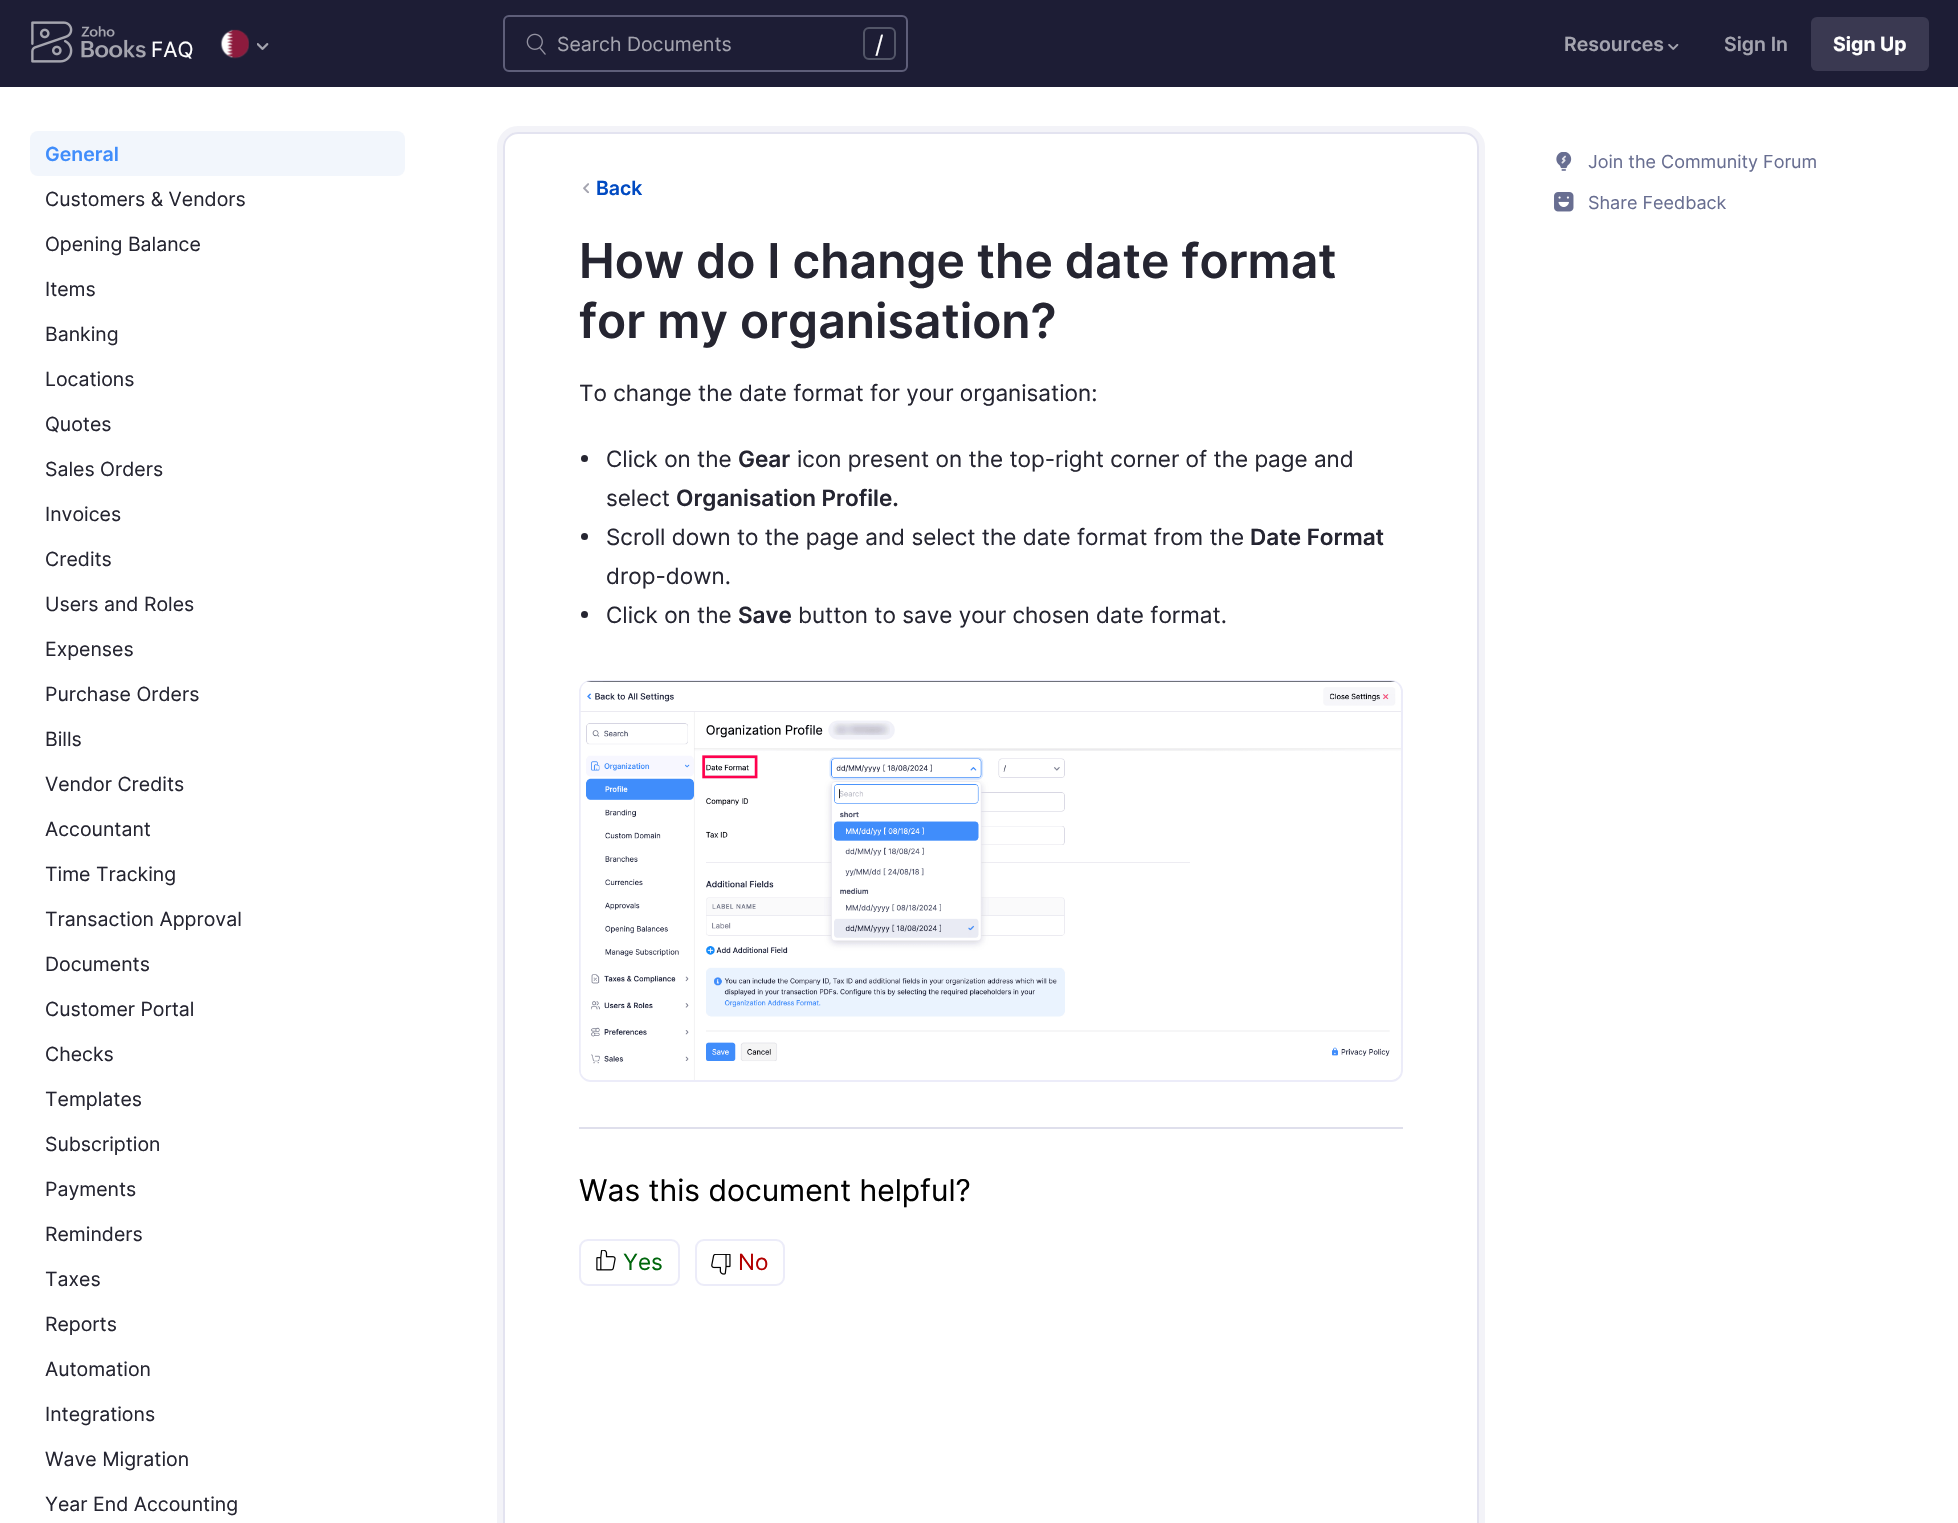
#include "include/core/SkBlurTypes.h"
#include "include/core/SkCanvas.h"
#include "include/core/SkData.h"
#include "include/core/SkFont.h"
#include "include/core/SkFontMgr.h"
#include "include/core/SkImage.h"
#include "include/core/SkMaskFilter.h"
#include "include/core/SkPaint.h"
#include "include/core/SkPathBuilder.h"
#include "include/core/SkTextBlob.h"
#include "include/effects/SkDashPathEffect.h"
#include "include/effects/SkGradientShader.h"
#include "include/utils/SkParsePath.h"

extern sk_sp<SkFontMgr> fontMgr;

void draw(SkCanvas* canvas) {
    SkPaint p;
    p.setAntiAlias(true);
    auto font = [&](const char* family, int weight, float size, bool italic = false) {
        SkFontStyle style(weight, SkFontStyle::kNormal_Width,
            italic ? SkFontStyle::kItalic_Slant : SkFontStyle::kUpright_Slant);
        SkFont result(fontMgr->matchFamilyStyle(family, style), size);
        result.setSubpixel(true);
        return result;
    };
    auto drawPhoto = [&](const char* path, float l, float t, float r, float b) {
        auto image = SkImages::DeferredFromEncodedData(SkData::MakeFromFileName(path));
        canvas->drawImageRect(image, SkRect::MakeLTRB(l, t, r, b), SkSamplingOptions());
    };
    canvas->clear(0xFFFFFFFF);
    p.setColor(0xFF1D1D35);
    canvas->drawRect(SkRect::MakeLTRB(0, 0, 1958, 87), p);
    drawPhoto("media/1.png", 31, 21, 146, 63);
    auto font1 = font("Inter", 400, 21);
    p.setColor(0xFFFFFFFF);
    canvas->drawString("FAQ", 151, 57, font1, p);
    drawPhoto("media/2.png", 220, 29, 249, 59);
    drawPhoto("media/3.png", 257, 43, 269, 50);
    drawPhoto("media/4.png", 526, 33, 546, 55);
    p.setStyle(SkPaint::kStroke_Style);
    p.setStrokeWidth(2);
    p.setColor(0xFF5E5E79);
    canvas->drawRoundRect(SkRect::MakeLTRB(504, 16, 907, 71), 5, 5, p);
    auto font2 = font("Inter", 400, 19.5f);
    p.setStyle(SkPaint::kFill_Style);
    p.setColor(0xFFA4A4AF);
    canvas->drawString("Search Documents", 557, 51, font2, p);
    p.setStyle(SkPaint::kStroke_Style);
    p.setColor(0xFF535668);
    canvas->drawRoundRect(SkRect::MakeLTRB(864, 28, 895, 59), 5, 5, p);
    auto font3 = font("Inter", 400, 24);
    p.setStyle(SkPaint::kFill_Style);
    p.setColor(0xFFFFFFFF);
    canvas->drawString("/", 875, 53, font3, p);
    auto font4 = font("Inter", 600, 19.5f);
    p.setColor(0xFFA4A4AF);
    canvas->drawString("Resources", 1564, 51, font4, p);
    drawPhoto("media/5.png", 1668, 44, 1679, 50);
    canvas->drawString("Sign In", 1724, 51, font4, p);
    p.setColor(0xFF3A3951);
    canvas->drawRoundRect(SkRect::MakeLTRB(1811, 17, 1929, 71), 6, 6, p);
    auto font5 = font("Inter", 700, 19.5f);
    p.setColor(0xFFFFFFFF);
    canvas->drawString("Sign Up", 1833, 51, font5, p);
    p.setColor(0xFFF2F6FC);
    canvas->drawRoundRect(SkRect::MakeLTRB(30, 131, 405, 176), 8, 8, p);
    p.setColor(0xFF408DFB);
    canvas->drawString("General", 45, 161, font4, p);
    p.setColor(0xFF252531);
    {
        const struct { const char* s; float x, y; } items[] = {
            {"Customers & Vendors", 45, 206},
            {"Opening Balance", 45, 251},
            {"Items", 45, 296},
            {"Banking", 45, 341},
            {"Locations", 45, 386},
            {"Quotes", 45, 431},
            {"Sales Orders", 45, 476},
            {"Invoices", 45, 521},
            {"Credits", 45, 566},
            {"Users and Roles", 45, 611},
            {"Expenses", 45, 656},
            {"Purchase Orders", 45, 701},
            {"Bills", 45, 746},
            {"Vendor Credits", 45, 791},
            {"Accountant", 45, 836},
            {"Time Tracking", 45, 881},
            {"Transaction Approval", 45, 926},
            {"Documents", 45, 971},
            {"Customer Portal", 45, 1016},
            {"Checks", 45, 1061},
            {"Templates", 45, 1106},
            {"Subscription", 45, 1151},
            {"Payments", 45, 1196},
            {"Reminders", 45, 1241},
            {"Taxes", 45, 1286},
            {"Reports", 45, 1331},
            {"Automation", 45, 1376},
            {"Integrations", 45, 1421},
            {"Wave Migration", 45, 1466},
            {"Year End Accounting", 45, 1511},
        };
        for (auto [s, x, y] : items) {
            canvas->drawString(s, x, y, font2, p);
        }
    }
    p.setStyle(SkPaint::kStroke_Style);
    p.setStrokeWidth(6);
    p.setColor(0xFFF3F3F8);
    canvas->drawRoundRect(SkRect::MakeLTRB(500, 129, 1482, 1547), 18, 18, p);
    p.setStrokeWidth(2);
    p.setColor(0xFFE3E3F0);
    canvas->drawRoundRect(SkRect::MakeLTRB(504, 133, 1478, 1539), 14, 14, p);
    drawPhoto("media/6.png", 583, 183, 589, 194);
    p.setStyle(SkPaint::kFill_Style);
    p.setColor(0xFF004AC2);
    canvas->drawString("Back", 596, 195, font4, p);
    auto font6 = font("Inter", 600, 48);
    p.setColor(0xFF252531);
    canvas->drawString("How do I change the date format", 579, 278, font6, p);
    canvas->drawString("for my organisation?", 579, 338, font6, p);
    auto font7 = font("Inter", 400, 22.5f);
    canvas->drawString("To change the date format for your organisation:", 579, 401, font7, p);
    canvas->drawCircle(584.5f, 458.5f, 3.5f, p);
    canvas->drawString("Click on the", 606, 467, font7, p);
    auto font8 = font("Inter", 600, 22.5f);
    canvas->drawString("Gear", 738, 467, font8, p);
    canvas->drawString("icon present on the top-right corner of the page and", 797, 467, font7, p);
    canvas->drawString("select", 606, 506, font7, p);
    canvas->drawString("Organisation Profile.", 676, 506, font8, p);
    canvas->drawCircle(584.5f, 536.5f, 3.5f, p);
    canvas->drawString("Scroll down to the page and select the date format from the", 606, 545, font7, p);
    canvas->drawString("Date Format", 1250, 545, font8, p);
    canvas->drawString("drop-down.", 606, 584, font7, p);
    canvas->drawCircle(584.5f, 614.5f, 3.5f, p);
    canvas->drawString("Click on the", 606, 623, font7, p);
    canvas->drawString("Save", 738, 623, font8, p);
    canvas->drawString("button to save your chosen date format.", 798, 623, font7, p);
    p.setStyle(SkPaint::kStroke_Style);
    p.setColor(0xFFECECF9);
    canvas->drawRoundRect(SkRect::MakeLTRB(580, 681, 1402, 1081), 11, 11, p);
    drawPhoto("media/7.png", 580, 681, 1401, 1080);
    p.setStyle(SkPaint::kFill_Style);
    p.setColor(0xFFDFDFEC);
    canvas->drawRect(SkRect::MakeLTRB(579, 1127, 1403, 1129), p);
    auto font9 = font("Inter", 400, 30);
    p.setColor(0xFF000000);
    canvas->drawString("Was this document helpful?", 579, 1201, font9, p);
    p.setStyle(SkPaint::kStroke_Style);
    p.setColor(0xFFECECF9);
    canvas->drawRoundRect(SkRect::MakeLTRB(580, 1240, 679, 1285), 8, 8, p);
    drawPhoto("media/8.png", 596, 1250, 616, 1271);
    p.setStyle(SkPaint::kFill_Style);
    p.setColor(0xFF00660C);
    canvas->drawString("Yes", 623, 1270, font7, p);
    p.setStyle(SkPaint::kStroke_Style);
    p.setColor(0xFFECECF9);
    canvas->drawRoundRect(SkRect::MakeLTRB(696, 1240, 784, 1285), 8, 8, p);
    drawPhoto("media/9.png", 711, 1254, 731, 1275);
    p.setStyle(SkPaint::kFill_Style);
    p.setColor(0xFFB30000);
    canvas->drawString("No", 738, 1270, font7, p);
    drawPhoto("media/10.png", 1556, 152, 1572, 171);
    auto font10 = font("Inter", 400, 18);
    p.setColor(0xFF686E91);
    canvas->drawString("Join the Community Forum", 1588, 168, font10, p);
    drawPhoto("media/11.png", 1554, 192, 1574, 212);
    canvas->drawString("Share Feedback", 1588, 209, font10, p);
}
